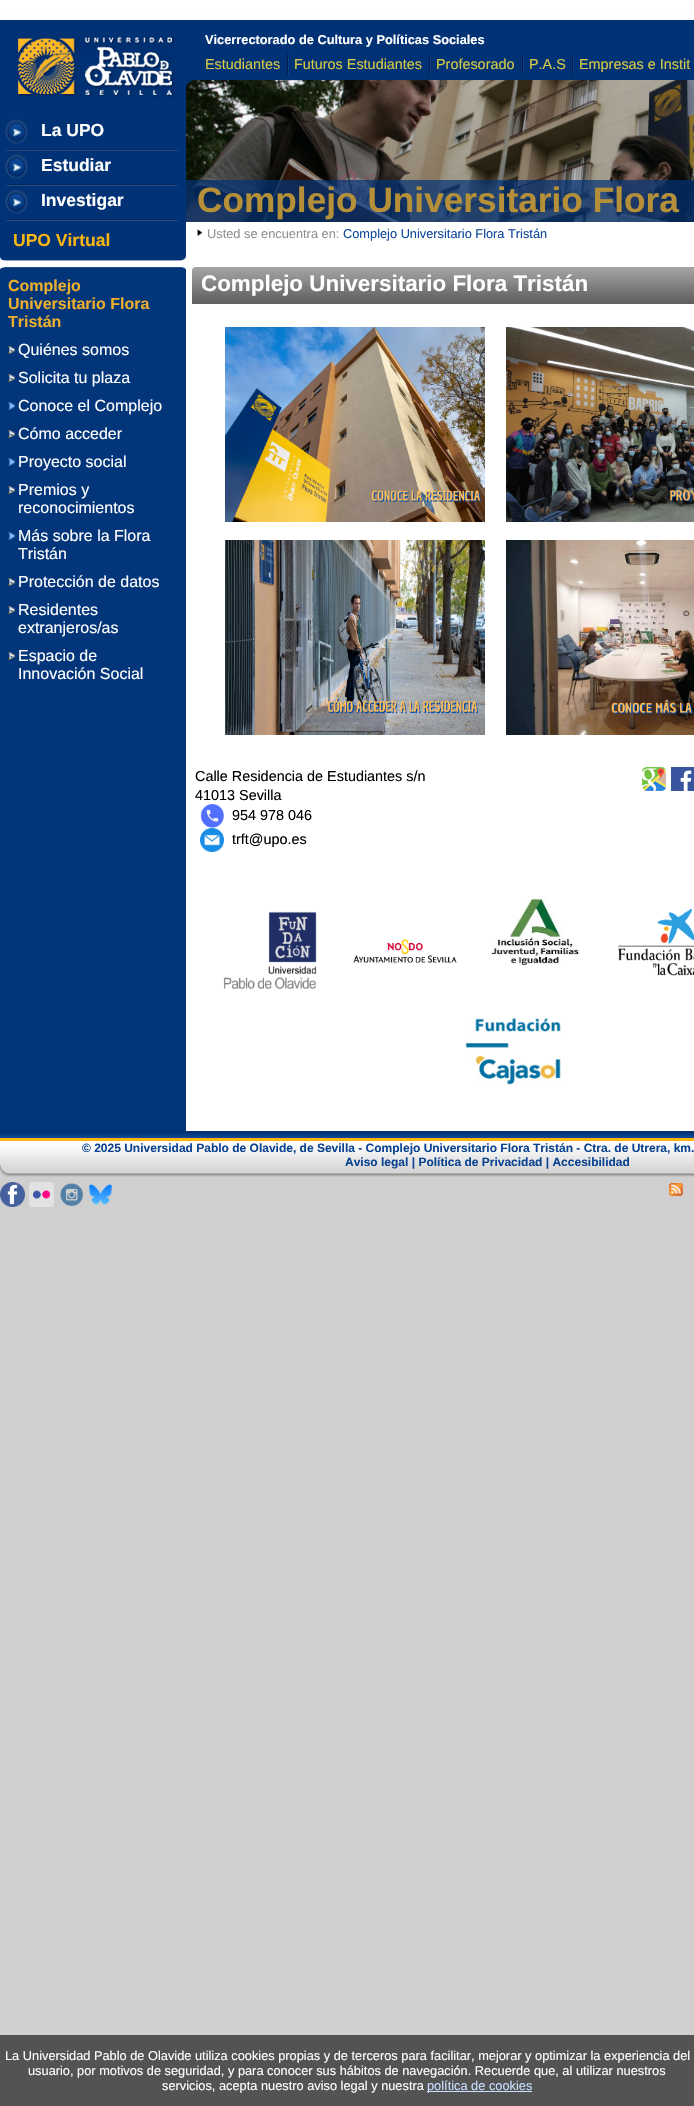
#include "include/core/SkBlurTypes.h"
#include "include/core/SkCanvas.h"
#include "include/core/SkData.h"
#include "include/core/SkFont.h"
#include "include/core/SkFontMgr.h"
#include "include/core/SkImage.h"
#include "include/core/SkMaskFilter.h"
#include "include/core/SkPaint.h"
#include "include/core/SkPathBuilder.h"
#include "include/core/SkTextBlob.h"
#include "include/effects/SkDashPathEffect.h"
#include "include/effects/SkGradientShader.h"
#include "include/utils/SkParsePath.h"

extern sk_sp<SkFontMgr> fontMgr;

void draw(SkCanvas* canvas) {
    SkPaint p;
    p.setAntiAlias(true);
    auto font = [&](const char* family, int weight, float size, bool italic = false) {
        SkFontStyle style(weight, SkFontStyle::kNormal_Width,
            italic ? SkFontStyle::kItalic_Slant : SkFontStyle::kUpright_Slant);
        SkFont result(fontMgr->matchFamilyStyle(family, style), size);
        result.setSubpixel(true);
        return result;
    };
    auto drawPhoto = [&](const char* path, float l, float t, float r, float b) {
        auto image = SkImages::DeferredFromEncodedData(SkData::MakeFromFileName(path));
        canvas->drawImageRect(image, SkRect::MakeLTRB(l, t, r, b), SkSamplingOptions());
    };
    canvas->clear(0xFFCFCFCF);
    drawPhoto("media/1.png", 0, 0, 694, 20);
    {
        const struct { float l, t, r, b; SkColor color; } items[] = {
            {186, 267, 694, 1131, 0xFFFFFFFF},
            {0, 270, 186, 1131, 0xFF03357A},
            {0, 222, 694, 267, 0xFFFFFFFF},
            {186, 20, 694, 80, 0xFF013276},
        };
        for (auto [l, t, r, b, color] : items) {
            p.setColor(color);
            canvas->drawRect(SkRect::MakeLTRB(l, t, r, b), p);
        }
    }
    auto font1 = font("Liberation Sans", 700, 12.8f);
    p.setColor(0xFFFFFFFF);
    canvas->drawString("Vicerrectorado de Cultura y Políticas Sociales", 205, 44, font1, p);
    auto font2 = font("Liberation Sans", 400, 14.4f);
    p.setColor(0xFFD7C948);
    canvas->drawString("Estudiantes", 205, 69, font2, p);
    drawPhoto("media/2.png", 287, 54, 289, 75);
    canvas->drawString("Futuros Estudiantes", 294, 69, font2, p);
    drawPhoto("media/2.png", 429, 54, 431, 75);
    canvas->drawString("Profesorado", 436, 69, font2, p);
    drawPhoto("media/2.png", 522, 54, 524, 75);
    canvas->drawString("P.A.S", 529, 69, font2, p);
    drawPhoto("media/2.png", 572, 54, 574, 75);
    canvas->drawString("Empresas e Instit", 579, 69, font2, p);
    p.setColor(0xFF013276);
    canvas->drawRect(SkRect::MakeLTRB(0, 20, 186, 256), p);
    drawPhoto("media/3.png", 17, 36, 175, 98);
    drawPhoto("media/4.png", 5, 119, 28, 144);
    auto font3 = font("Liberation Sans", 700, 17.5f);
    p.setColor(0xFFFFFFFF);
    canvas->drawString("La UPO", 41, 136, font3, p);
    drawPhoto("media/5.png", 6, 149, 178, 151);
    drawPhoto("media/4.png", 5, 154, 28, 179);
    canvas->drawString("Estudiar", 41, 171, font3, p);
    drawPhoto("media/5.png", 6, 184, 178, 186);
    drawPhoto("media/4.png", 5, 189, 28, 214);
    canvas->drawString("Investigar", 41, 206, font3, p);
    drawPhoto("media/5.png", 6, 219, 178, 221);
    drawPhoto("media/6.png", 0, 256, 186, 261);
    p.setColor(0xFFF9B610);
    canvas->drawString("UPO Virtual", 13, 246, font3, p);
    drawPhoto("media/7.png", 186, 80, 694, 222);
    drawPhoto("media/8.png", 186, 80, 192, 86);
    p.setColor(0xB3013276);
    canvas->drawRect(SkRect::MakeLTRB(186, 180, 694, 222), p);
    auto font4 = font("Liberation Sans", 700, 35.25f);
    p.setColor(0xFFB59039);
    canvas->drawString("Complejo Universitario Flora", 197, 212, font4, p);
    drawPhoto("media/9.png", 197, 229, 203, 236);
    auto font5 = font("Liberation Sans", 400, 12.8f);
    p.setColor(0xFF919191);
    canvas->drawString("Usted se encuentra en:", 207, 238, font5, p);
    p.setColor(0xFF0F499A);
    canvas->drawString("Complejo Universitario Flora Tristán", 343, 238, font5, p);
    drawPhoto("media/10.png", 0, 267, 186, 270);
    auto font6 = font("Liberation Sans", 700, 16);
    p.setColor(0xFFECAF2D);
    {
        const struct { const char* s; float x, y; } items[] = {
            {"Complejo", 8, 291},
            {"Universitario Flora", 8, 309},
            {"Tristán", 8, 327},
        };
        for (auto [s, x, y] : items) {
            canvas->drawString(s, x, y, font6, p);
        }
    }
    drawPhoto("media/11.png", 8, 346, 15, 354);
    auto font7 = font("Liberation Sans", 400, 16);
    p.setColor(0xFFFFFFFF);
    canvas->drawString("Quiénes somos", 18, 355, font7, p);
    drawPhoto("media/11.png", 8, 374, 15, 382);
    canvas->drawString("Solicita tu plaza", 18, 383, font7, p);
    drawPhoto("media/12.png", 8, 402, 15, 410);
    canvas->drawString("Conoce el Complejo", 18, 411, font7, p);
    drawPhoto("media/11.png", 8, 430, 15, 438);
    canvas->drawString("Cómo acceder", 18, 439, font7, p);
    drawPhoto("media/12.png", 8, 458, 15, 466);
    canvas->drawString("Proyecto social", 18, 467, font7, p);
    drawPhoto("media/11.png", 8, 486, 15, 494);
    canvas->drawString("Premios y", 18, 495, font7, p);
    canvas->drawString("reconocimientos", 18, 513, font7, p);
    drawPhoto("media/12.png", 8, 532, 15, 540);
    canvas->drawString("Más sobre la Flora", 18, 541, font7, p);
    canvas->drawString("Tristán", 18, 559, font7, p);
    drawPhoto("media/11.png", 8, 578, 15, 586);
    canvas->drawString("Protección de datos", 18, 587, font7, p);
    drawPhoto("media/11.png", 8, 606, 15, 614);
    canvas->drawString("Residentes", 18, 615, font7, p);
    canvas->drawString("extranjeros/as", 18, 633, font7, p);
    drawPhoto("media/11.png", 8, 652, 15, 660);
    canvas->drawString("Espacio de", 18, 661, font7, p);
    canvas->drawString("Innovación Social", 18, 679, font7, p);
    drawPhoto("media/13.png", 192, 267, 694, 304);
    auto font8 = font("Liberation Sans", 700, 22.4f);
    canvas->drawString("Complejo Universitario Flora Tristán", 201, 291, font8, p);
    drawPhoto("media/14.png", 225, 327, 485, 522);
    drawPhoto("media/15.png", 506, 327, 694, 522);
    drawPhoto("media/16.png", 225, 540, 485, 735);
    drawPhoto("media/17.png", 506, 540, 694, 735);
    p.setColor(0xFF000000);
    canvas->drawString("Calle Residencia de Estudiantes s/n", 195, 781, font2, p);
    canvas->drawString("41013 Sevilla", 195, 800, font2, p);
    drawPhoto("media/18.png", 200, 804, 224, 828);
    canvas->drawString("954 978 046", 232, 820, font2, p);
    drawPhoto("media/19.png", 200, 828, 224, 852);
    canvas->drawString("trft@upo.es", 232, 844, font2, p);
    drawPhoto("media/20.png", 642, 767, 666, 791);
    drawPhoto("media/21.png", 671, 767, 694, 791);
    drawPhoto("media/22.png", 223, 911, 317, 990);
    drawPhoto("media/23.png", 353, 939, 457, 963);
    drawPhoto("media/24.png", 491, 896, 580, 966);
    drawPhoto("media/25.png", 618, 908, 694, 976);
    drawPhoto("media/26.png", 465, 1017, 561, 1085);
    drawPhoto("media/27.png", 0, 1141, 694, 1177);
    drawPhoto("media/28.png", 0, 1131, 694, 1141);
    auto font9 = font("Liberation Sans", 700, 12);
    p.setColor(0xFF0B4390);
    canvas->drawString("© 2025 Universidad Pablo de Olavide, de Sevilla - Complejo Universitario Flora Tristán - Ctra. de Utrera, km.", 82, 1152, font9, p);
    canvas->drawString("Aviso legal | Política de Privacidad | Accesibilidad", 345, 1166, font9, p);
    drawPhoto("media/29.png", 0, 1182, 25, 1207);
    drawPhoto("media/30.png", 29, 1182, 54, 1207);
    drawPhoto("media/31.png", 60, 1183, 84, 1207);
    drawPhoto("media/32.png", 89, 1184, 112, 1205);
    drawPhoto("media/33.png", 669, 1183, 683, 1196);
    p.setColor(0xFF535353);
    canvas->drawRect(SkRect::MakeLTRB(0, 2035, 694, 2106), p);
    p.setColor(0xFFFFFFFF);
    {
        const struct { const char* s; float x, y; } items[] = {
            {"La Universidad Pablo de Olavide utiliza cookies propias y de terceros para facilitar, mejorar y optimizar la experiencia del", 5, 2060},
            {"usuario, por motivos de seguridad, y para conocer sus hábitos de navegación. Recuerde que, al utilizar nuestros", 28, 2075},
            {"servicios, acepta nuestro aviso legal y nuestra", 162, 2090},
        };
        for (auto [s, x, y] : items) {
            canvas->drawString(s, x, y, font5, p);
        }
    }
    p.setColor(0xFFC8DFFF);
    canvas->drawRect(SkRect::MakeLTRB(427, 2091, 532, 2092), p);
    canvas->drawString("política de cookies", 427, 2090, font5, p);
}
